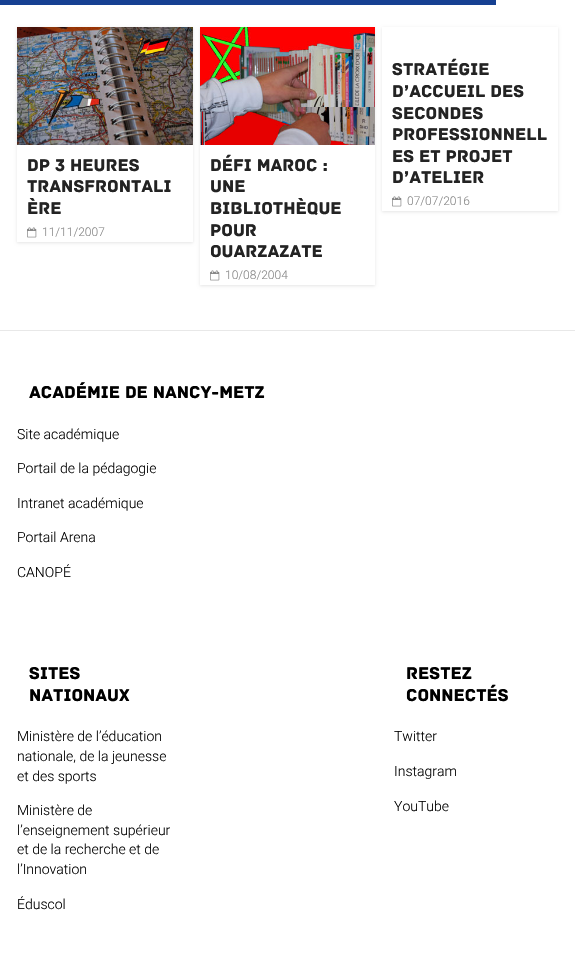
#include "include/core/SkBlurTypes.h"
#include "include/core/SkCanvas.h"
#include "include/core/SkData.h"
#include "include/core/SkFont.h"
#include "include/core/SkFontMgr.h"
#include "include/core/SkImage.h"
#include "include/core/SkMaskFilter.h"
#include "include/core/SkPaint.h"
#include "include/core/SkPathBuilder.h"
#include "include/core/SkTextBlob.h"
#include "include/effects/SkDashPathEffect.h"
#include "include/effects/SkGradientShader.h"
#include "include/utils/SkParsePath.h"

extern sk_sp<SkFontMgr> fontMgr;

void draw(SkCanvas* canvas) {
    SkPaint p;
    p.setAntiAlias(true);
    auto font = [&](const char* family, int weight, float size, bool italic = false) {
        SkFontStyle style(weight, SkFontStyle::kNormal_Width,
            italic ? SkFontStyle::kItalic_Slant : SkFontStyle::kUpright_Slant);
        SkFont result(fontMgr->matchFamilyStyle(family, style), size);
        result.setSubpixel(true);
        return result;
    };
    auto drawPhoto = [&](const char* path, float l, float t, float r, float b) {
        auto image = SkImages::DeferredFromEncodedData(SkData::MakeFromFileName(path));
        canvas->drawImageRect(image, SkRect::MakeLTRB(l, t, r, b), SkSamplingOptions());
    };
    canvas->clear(0xFFFFFFFF);
    p.setColor(0xFF164092);
    canvas->drawRect(SkRect::MakeLTRB(0, 0, 496, 5), p);
    canvas->save();
    canvas->clipPath(SkPathBuilder(SkPathFillType::kEvenOdd).moveTo(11, 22).lineTo(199, 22).lineTo(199, 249).lineTo(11, 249).close().moveTo(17, 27).lineTo(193, 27).lineTo(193, 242).lineTo(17, 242).close().detach(), true);
    p.setColor(0x1A000000);
    p.setMaskFilter(SkMaskFilter::MakeBlur(kNormal_SkBlurStyle, 1.5f));
    canvas->drawRect(SkRect::MakeLTRB(17, 28, 193, 243), p);
    p.setMaskFilter(nullptr);
    canvas->restore();
    drawPhoto("media/1.png", 17, 27, 193, 145);
    auto font1 = font("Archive", 400, 18);
    p.setColor(0xFF232323);
    {
        const struct { const char* s; float x, y; } items[] = {
            {"DP 3 heures", 27, 171},
            {"transfrontali", 27, 192},
            {"ère", 27, 214},
        };
        for (auto [s, x, y] : items) {
            canvas->drawString(s, x, y, font1, p);
        }
    }
    drawPhoto("media/2.png", 27, 227, 37, 238);
    auto font2 = font("Roboto", 300, 12);
    p.setColor(0xFF888888);
    canvas->drawString("11/11/2007", 42, 236, font2, p);
    canvas->save();
    canvas->clipPath(SkPathBuilder(SkPathFillType::kEvenOdd).moveTo(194, 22).lineTo(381, 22).lineTo(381, 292).lineTo(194, 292).close().moveTo(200, 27).lineTo(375, 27).lineTo(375, 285).lineTo(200, 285).close().detach(), true);
    p.setColor(0x1A000000);
    p.setMaskFilter(SkMaskFilter::MakeBlur(kNormal_SkBlurStyle, 1.5f));
    canvas->drawRect(SkRect::MakeLTRB(200, 28, 375, 286), p);
    p.setMaskFilter(nullptr);
    canvas->restore();
    drawPhoto("media/3.png", 200, 27, 375, 145);
    p.setColor(0xFF232323);
    {
        const struct { const char* s; float x, y; } items[] = {
            {"Défi Maroc :", 210, 171},
            {"une", 210, 192},
            {"bibliothèque", 210, 214},
            {"pour", 210, 236},
            {"Ouarzazate", 210, 257},
        };
        for (auto [s, x, y] : items) {
            canvas->drawString(s, x, y, font1, p);
        }
    }
    drawPhoto("media/2.png", 210, 270, 220, 281);
    p.setColor(0xFF888888);
    canvas->drawString("10/08/2004", 225, 279, font2, p);
    canvas->save();
    canvas->clipPath(SkPathBuilder(SkPathFillType::kEvenOdd).moveTo(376, 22).lineTo(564, 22).lineTo(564, 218).lineTo(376, 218).close().moveTo(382, 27).lineTo(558, 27).lineTo(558, 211).lineTo(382, 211).close().detach(), true);
    p.setColor(0x1A000000);
    p.setMaskFilter(SkMaskFilter::MakeBlur(kNormal_SkBlurStyle, 1.5f));
    canvas->drawRect(SkRect::MakeLTRB(382, 28, 558, 212), p);
    p.setMaskFilter(nullptr);
    canvas->restore();
    p.setColor(0xFF232323);
    {
        const struct { const char* s; float x, y; } items[] = {
            {"Stratégie", 392, 75},
            {"d’accueil des", 392, 97},
            {"secondes", 392, 119},
            {"professionnell", 392, 140},
            {"es et projet", 392, 162},
            {"d’atelier", 392, 183},
        };
        for (auto [s, x, y] : items) {
            canvas->drawString(s, x, y, font1, p);
        }
    }
    drawPhoto("media/2.png", 392, 196, 402, 207);
    p.setColor(0xFF888888);
    canvas->drawString("07/07/2016", 407, 205, font2, p);
    p.setColor(0xFFE8E8E8);
    canvas->drawRect(SkRect::MakeLTRB(0, 330, 575, 331), p);
    p.setColor(0xFF000000);
    canvas->drawString("ACADÉMIE DE NANCY-METZ", 29, 398, font1, p);
    auto font3 = font("Roboto", 300, 14);
    {
        const struct { const char* s; float x, y; } items[] = {
            {"Site académique", 17, 439},
            {"Portail de la pédagogie", 17, 473},
            {"Intranet académique", 17, 508},
            {"Portail Arena", 17, 542},
            {"CANOPÉ", 17, 577},
        };
        for (auto [s, x, y] : items) {
            canvas->drawString(s, x, y, font3, p);
        }
    }
    canvas->drawString("Sites", 29, 679, font1, p);
    canvas->drawString("nationaux", 29, 701, font1, p);
    {
        const struct { const char* s; float x, y; } items[] = {
            {"Ministère de l’éducation", 17, 741},
            {"nationale, de la jeunesse", 17, 761},
            {"et des sports", 17, 781},
            {"Ministère de", 17, 815},
            {"l’enseignement supérieur", 17, 835},
            {"et de la recherche et de", 17, 854},
            {"l’Innovation", 17, 874},
            {"Éduscol", 17, 909},
        };
        for (auto [s, x, y] : items) {
            canvas->drawString(s, x, y, font3, p);
        }
    }
    canvas->drawString("Restez", 406, 679, font1, p);
    canvas->drawString("connectés", 406, 701, font1, p);
    {
        const struct { const char* s; float x, y; } items[] = {
            {"Twitter", 394, 741},
            {"Instagram", 394, 776},
            {"YouTube", 394, 811},
        };
        for (auto [s, x, y] : items) {
            canvas->drawString(s, x, y, font3, p);
        }
    }
}
